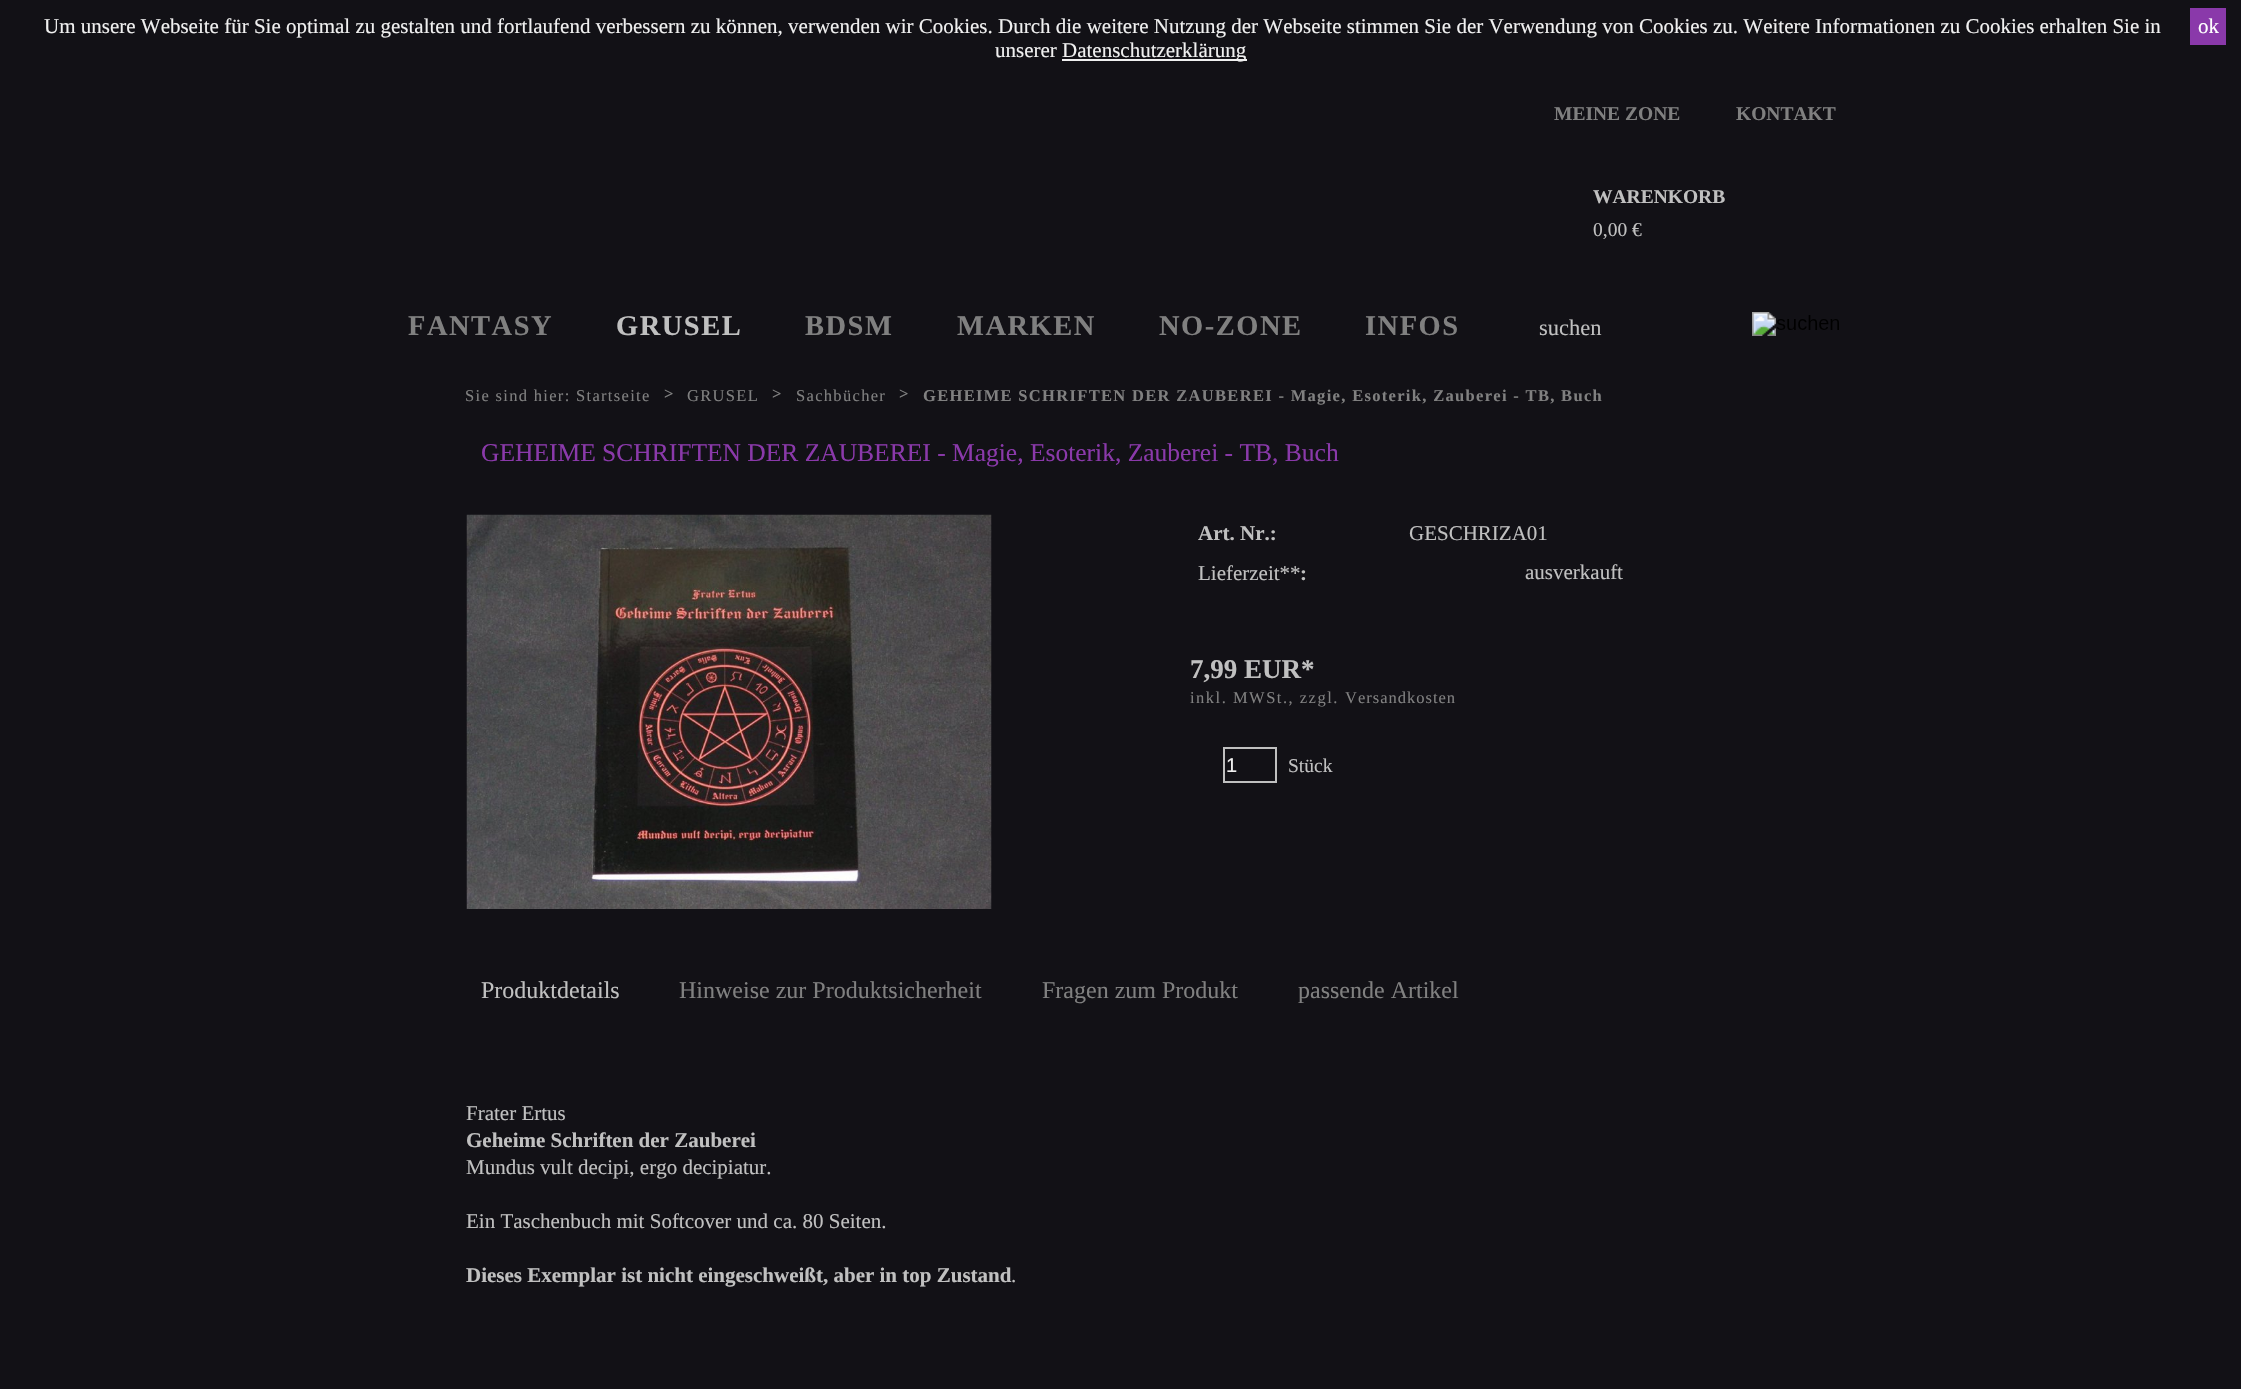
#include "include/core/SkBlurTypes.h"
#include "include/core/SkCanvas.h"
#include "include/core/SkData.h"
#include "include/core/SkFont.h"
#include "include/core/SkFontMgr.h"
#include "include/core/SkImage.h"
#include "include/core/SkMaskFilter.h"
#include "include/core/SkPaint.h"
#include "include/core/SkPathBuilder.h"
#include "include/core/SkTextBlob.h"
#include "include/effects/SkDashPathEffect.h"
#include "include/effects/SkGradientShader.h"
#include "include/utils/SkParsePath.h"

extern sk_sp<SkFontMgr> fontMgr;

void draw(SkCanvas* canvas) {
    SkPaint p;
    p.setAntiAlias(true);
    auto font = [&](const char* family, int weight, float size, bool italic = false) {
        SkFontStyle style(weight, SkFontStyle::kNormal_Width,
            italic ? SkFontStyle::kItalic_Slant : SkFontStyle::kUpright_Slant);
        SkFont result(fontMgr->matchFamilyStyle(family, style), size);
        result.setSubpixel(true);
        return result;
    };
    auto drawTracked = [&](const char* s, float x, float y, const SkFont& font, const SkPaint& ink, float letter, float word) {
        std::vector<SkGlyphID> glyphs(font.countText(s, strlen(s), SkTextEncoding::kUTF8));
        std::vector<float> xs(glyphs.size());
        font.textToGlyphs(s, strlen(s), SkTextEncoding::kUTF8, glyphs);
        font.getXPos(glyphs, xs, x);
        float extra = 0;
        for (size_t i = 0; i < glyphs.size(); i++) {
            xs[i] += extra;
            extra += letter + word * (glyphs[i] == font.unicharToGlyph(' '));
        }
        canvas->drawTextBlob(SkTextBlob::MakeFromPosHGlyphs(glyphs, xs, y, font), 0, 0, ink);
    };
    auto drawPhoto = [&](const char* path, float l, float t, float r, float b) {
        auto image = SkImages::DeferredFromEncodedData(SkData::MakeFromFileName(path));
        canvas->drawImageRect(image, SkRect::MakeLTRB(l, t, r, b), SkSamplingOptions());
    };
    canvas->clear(0xFF121116);
    auto font1 = font("Liberation Serif", 400, 21);
    p.setColor(0xFFF0F0F0);
    canvas->drawString("Um unsere Webseite für Sie optimal zu gestalten und fortlaufend verbessern zu können, verwenden wir Cookies. Durch die weitere Nutzung der Webseite stimmen Sie der Verwendung von Cookies zu. Weitere Informationen zu Cookies erhalten Sie in", 44, 33, font1, p);
    p.setColor(0xFF8A39AA);
    canvas->drawRect(SkRect::MakeLTRB(2190, 8, 2226, 45), p);
    p.setColor(0xFFFFFFFF);
    canvas->drawString("ok", 2198, 33, font1, p);
    p.setColor(0xFFF0F0F0);
    canvas->drawString("unserer", 995, 57, font1, p);
    canvas->drawRect(SkRect::MakeLTRB(1062, 59, 1247, 61), p);
    canvas->drawString("Datenschutzerklärung", 1062, 57, font1, p);
    auto font2 = font("Liberation Serif", 700, 19.5f);
    p.setColor(0xFF808080);
    canvas->drawString("MEINE ZONE", 1554, 120, font2, p);
    canvas->drawString("KONTAKT", 1736, 120, font2, p);
    p.setColor(0xFFC0C0C0);
    canvas->drawString("WARENKORB", 1593, 203, font2, p);
    auto font3 = font("Liberation Serif", 400, 19.5f);
    canvas->drawString("0,00 €", 1593, 236, font3, p);
    auto font4 = font("Liberation Serif", 700, 28.5f);
    p.setColor(0xFF808080);
    drawTracked("FANTASY", 408, 335, font4, p, 1.5f, 0);
    p.setColor(0xFFC0C0C0);
    drawTracked("GRUSEL", 616, 335, font4, p, 1.5f, 0);
    p.setColor(0xFF808080);
    {
        const struct { const char* s; float x, y; } items[] = {
            {"BDSM", 805, 335},
            {"MARKEN", 957, 335},
            {"NO-ZONE", 1159, 335},
            {"INFOS", 1365, 335},
        };
        for (auto [s, x, y] : items) {
            drawTracked(s, x, y, font4, p, 1.5f, 0);
        }
    }
    auto font5 = font("Liberation Serif", 400, 22.5f);
    p.setColor(0xFFC0C0C0);
    canvas->drawString("suchen", 1539, 335, font5, p);
    drawPhoto("media/1.png", 1752, 312, 1839, 336);
    auto font6 = font("Liberation Serif", 400, 16.5f);
    p.setColor(0xFF808080);
    drawTracked("Sie sind hier: Startseite", 465, 401, font6, p, 1.32f, 0);
    auto font7 = font("Liberation Serif", 700, 16.5f);
    drawTracked(">", 664, 399, font7, p, 1.32f, 0);
    drawTracked("GRUSEL", 687, 401, font6, p, 1.32f, 0);
    drawTracked(">", 772, 399, font7, p, 1.32f, 0);
    drawTracked("Sachbücher", 796, 401, font6, p, 1.32f, 0);
    drawTracked(">", 899, 399, font7, p, 1.32f, 0);
    drawTracked("GEHEIME SCHRIFTEN DER ZAUBEREI - Magie, Esoterik, Zauberei - TB, Buch", 923, 401, font7, p, 1.32f, 0);
    auto font8 = font("Liberation Serif", 400, 25.5f);
    p.setColor(0xFF8A39AA);
    canvas->drawString("GEHEIME SCHRIFTEN DER ZAUBEREI - Magie, Esoterik, Zauberei - TB, Buch", 481, 461, font8, p);
    drawPhoto("media/2.png", 466, 514, 992, 909);
    auto font9 = font("Liberation Serif", 700, 21);
    p.setColor(0xFFC0C0C0);
    canvas->drawString("Art. Nr.:", 1198, 540, font9, p);
    canvas->drawString("GESCHRIZA01", 1409, 540, font1, p);
    canvas->drawString("Lieferzeit**", 1198, 580, font1, p);
    canvas->drawString(":", 1300, 580, font9, p);
    canvas->drawString("ausverkauft", 1525, 579, font1, p);
    auto font10 = font("Liberation Serif", 700, 27);
    canvas->drawString("7,99 EUR*", 1190, 678, font10, p);
    p.setColor(0xFF808080);
    drawTracked("inkl. MWSt., zzgl.", 1190, 703, font6, p, 1.5f, 0);
    drawTracked("Versandkosten", 1345, 703, font6, p, 1, 0);
    p.setStyle(SkPaint::kStroke_Style);
    p.setStrokeWidth(2);
    p.setColor(0xFFC0C0C0);
    canvas->drawRect(SkRect::MakeLTRB(1224, 748, 1276, 782), p);
    auto font11 = font("Liberation Sans", 400, 20);
    p.setStyle(SkPaint::kFill_Style);
    p.setColor(0xFFF0F0F0);
    canvas->drawString("1", 1226, 772, font11, p);
    p.setColor(0xFFC0C0C0);
    canvas->drawString("Stück", 1288, 772, font3, p);
    auto font12 = font("Liberation Serif", 400, 24);
    canvas->drawString("Produktdetails", 481, 998, font12, p);
    p.setColor(0xFF808080);
    {
        const struct { const char* s; float x, y; } items[] = {
            {"Hinweise zur Produktsicherheit", 679, 998},
            {"Fragen zum Produkt", 1042, 998},
            {"passende Artikel", 1298, 998},
        };
        for (auto [s, x, y] : items) {
            canvas->drawString(s, x, y, font12, p);
        }
    }
    p.setColor(0xFFC0C0C0);
    canvas->drawString("Frater Ertus", 466, 1120, font1, p);
    canvas->drawString("Geheime Schriften der Zauberei", 466, 1147, font9, p);
    canvas->drawString("Mundus vult decipi, ergo decipiatur.", 466, 1174, font1, p);
    canvas->drawString("Ein Taschenbuch mit Softcover und ca. 80 Seiten.", 466, 1228, font1, p);
    canvas->drawString("Dieses Exemplar ist nicht eingeschweißt, aber in top Zustand", 466, 1282, font9, p);
    canvas->drawString(".", 1011, 1282, font1, p);
}
